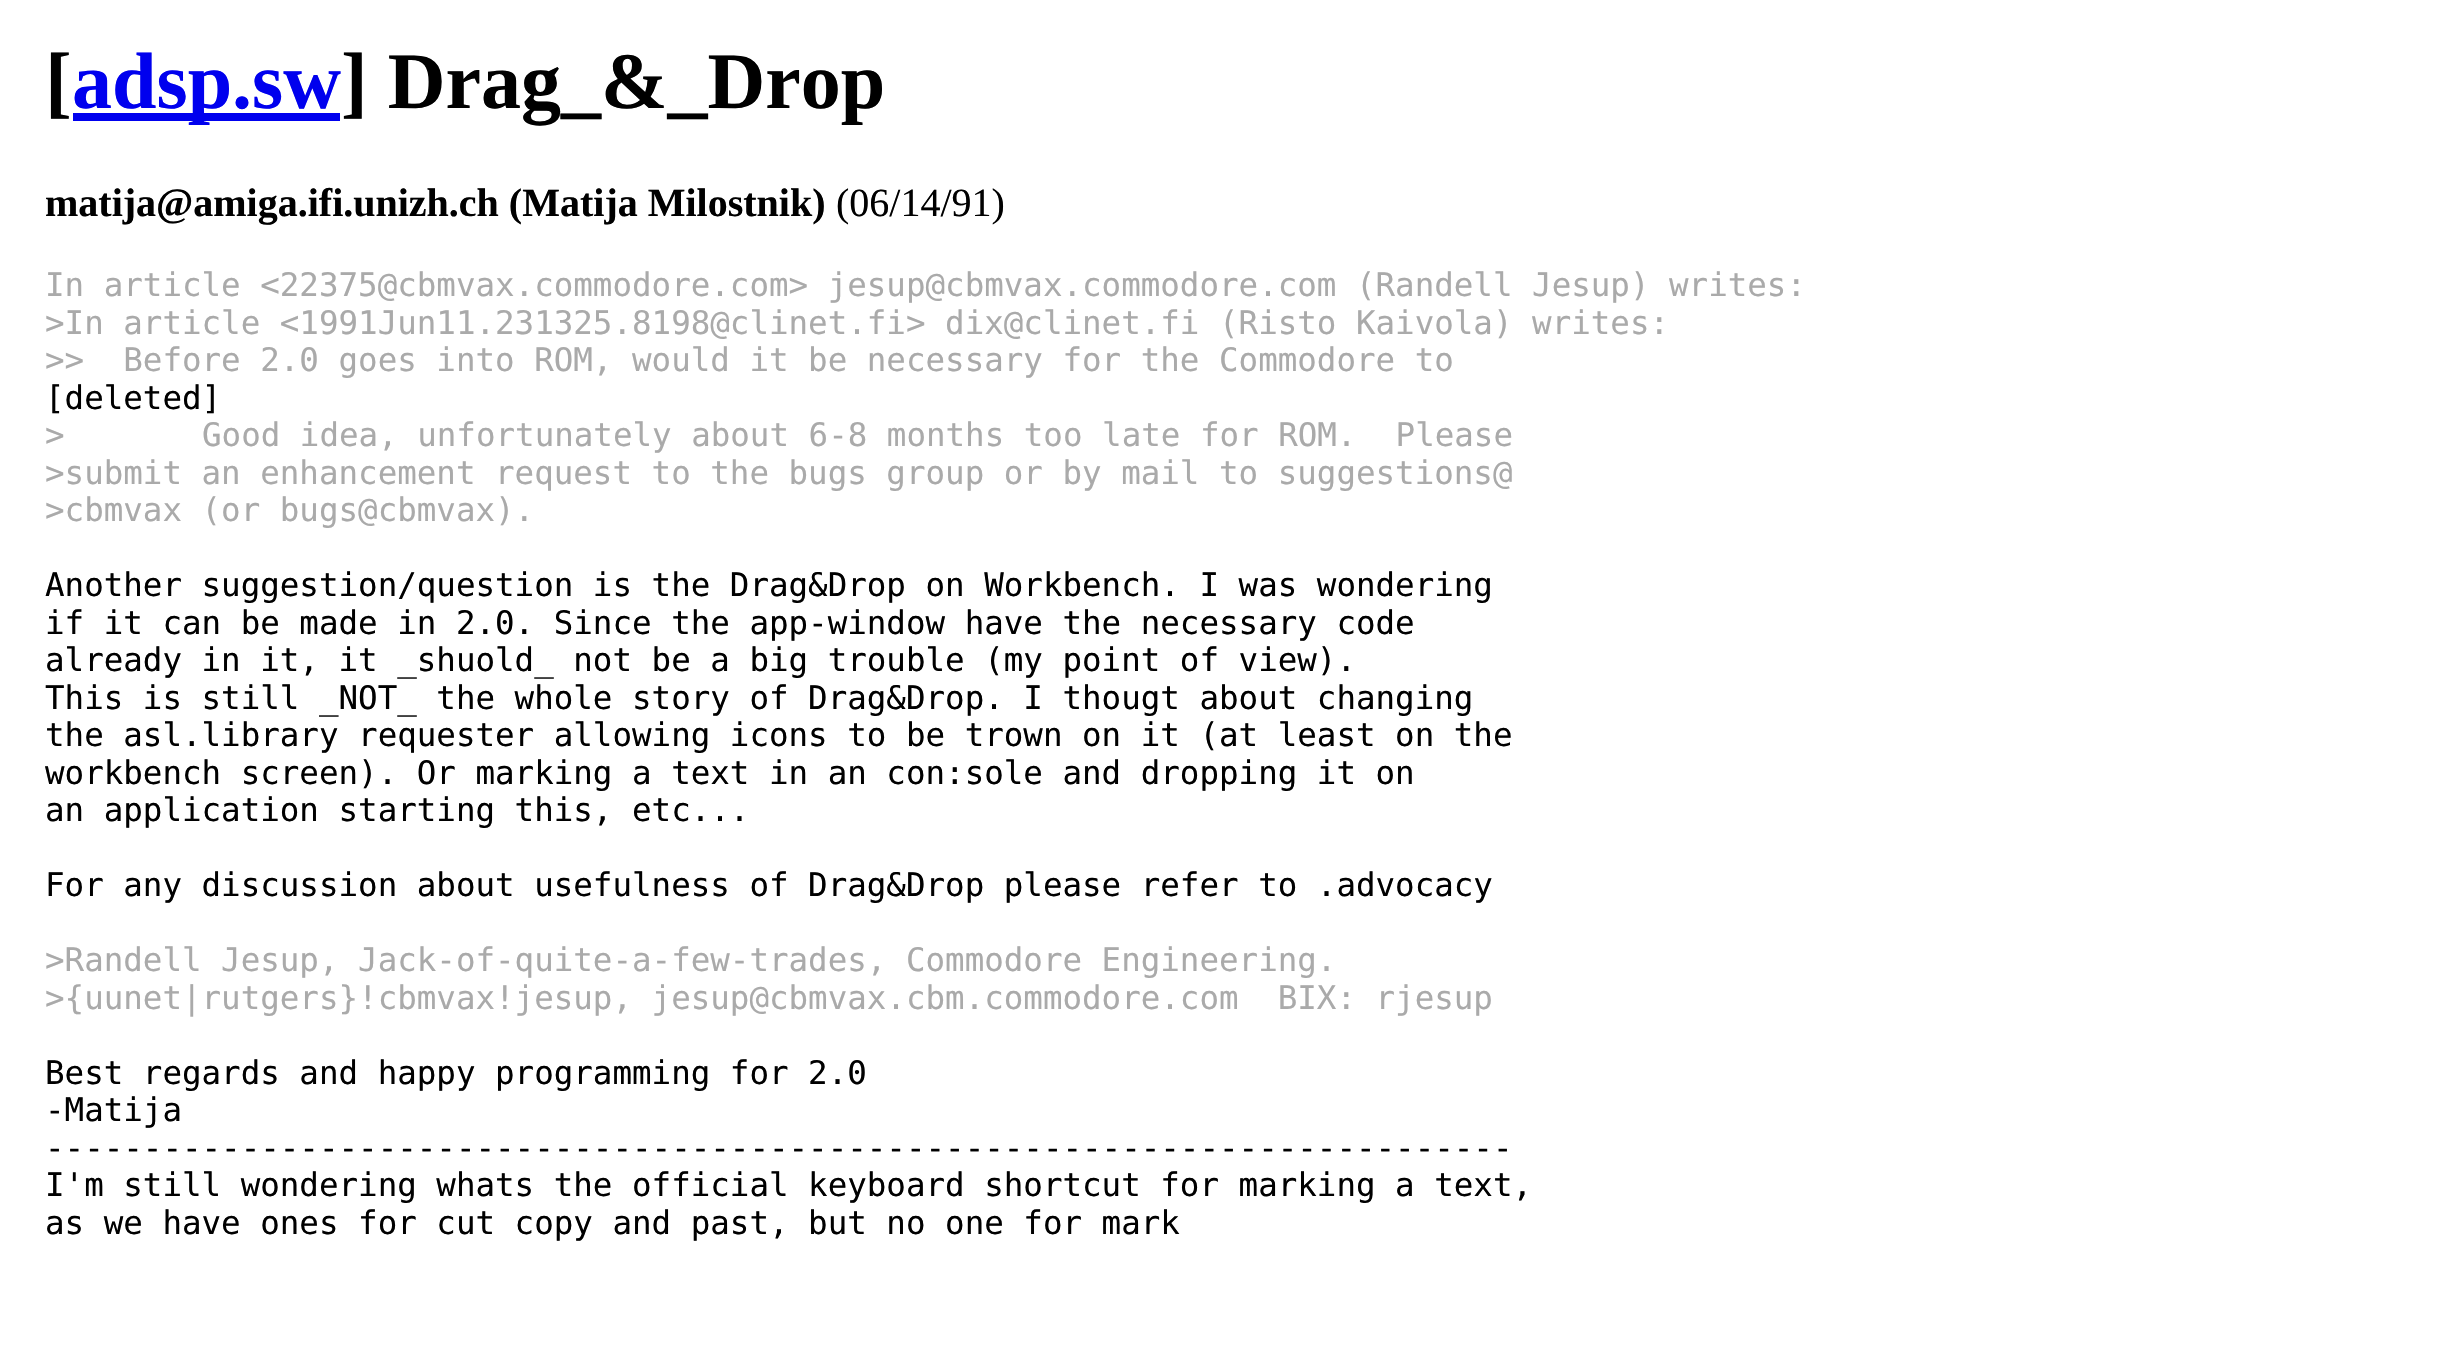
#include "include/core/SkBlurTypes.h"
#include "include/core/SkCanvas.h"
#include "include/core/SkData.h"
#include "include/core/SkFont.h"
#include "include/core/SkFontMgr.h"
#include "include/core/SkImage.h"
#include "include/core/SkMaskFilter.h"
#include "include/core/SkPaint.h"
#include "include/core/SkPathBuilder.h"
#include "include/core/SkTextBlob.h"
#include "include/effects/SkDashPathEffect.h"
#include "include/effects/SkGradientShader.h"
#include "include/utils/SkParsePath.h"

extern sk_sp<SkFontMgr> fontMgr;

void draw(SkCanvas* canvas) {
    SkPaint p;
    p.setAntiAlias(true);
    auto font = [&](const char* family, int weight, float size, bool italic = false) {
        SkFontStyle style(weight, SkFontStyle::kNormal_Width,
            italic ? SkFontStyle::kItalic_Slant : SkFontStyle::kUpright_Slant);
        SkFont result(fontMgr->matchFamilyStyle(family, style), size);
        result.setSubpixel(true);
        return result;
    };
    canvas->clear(0xFFFFFFFF);
    auto font1 = font("Liberation Serif", 700, 80);
    p.setColor(0xFF000000);
    canvas->drawString("[", 45, 108, font1, p);
    p.setColor(0xFF0000EE);
    canvas->drawRect(SkRect::MakeLTRB(73, 113, 340, 121), p);
    canvas->drawString("adsp.sw", 72, 108, font1, p);
    p.setColor(0xFF000000);
    canvas->drawString("] Drag_&_Drop", 341, 108, font1, p);
    auto font2 = font("Liberation Serif", 700, 40);
    canvas->drawString("matija@amiga.ifi.unizh.ch (Matija Milostnik)", 45, 216, font2, p);
    auto font3 = font("Liberation Serif", 400, 40);
    canvas->drawString("(06/14/91)", 836, 216, font3, p);
    auto font4 = font("DejaVu Sans Mono", 400, 32.5f);
    p.setColor(0xFFAAAAAA);
    {
        const struct { const char* s; float x, y; } items[] = {
            {"In article <22375@cbmvax.commodore.com> jesup@cbmvax.commodore.com (Randell Jesup) writes:", 45, 296},
            {">In article <1991Jun11.231325.8198@clinet.fi> dix@clinet.fi (Risto Kaivola) writes:", 45, 334},
            {">>  Before 2.0 goes into ROM, would it be necessary for the Commodore to", 45, 371},
        };
        for (auto [s, x, y] : items) {
            canvas->drawString(s, x, y, font4, p);
        }
    }
    p.setColor(0xFF000000);
    canvas->drawString("[deleted]", 45, 409, font4, p);
    p.setColor(0xFFAAAAAA);
    {
        const struct { const char* s; float x, y; } items[] = {
            {">", 45, 446},
            {"Good idea, unfortunately about 6-8 months too late for ROM.  Please", 202, 446},
            {">submit an enhancement request to the bugs group or by mail to suggestions@", 45, 484},
            {">cbmvax (or bugs@cbmvax).", 45, 521},
        };
        for (auto [s, x, y] : items) {
            canvas->drawString(s, x, y, font4, p);
        }
    }
    p.setColor(0xFF000000);
    {
        const struct { const char* s; float x, y; } items[] = {
            {"Another suggestion/question is the Drag&Drop on Workbench. I was wondering", 45, 596},
            {"if it can be made in 2.0. Since the app-window have the necessary code", 45, 634},
            {"already in it, it _shuold_ not be a big trouble (my point of view).", 45, 671},
            {"This is still _NOT_ the whole story of Drag&Drop. I thougt about changing", 45, 709},
            {"the asl.library requester allowing icons to be trown on it (at least on the", 45, 746},
            {"workbench screen). Or marking a text in an con:sole and dropping it on", 45, 784},
            {"an application starting this, etc...", 45, 821},
            {"For any discussion about usefulness of Drag&Drop please refer to .advocacy", 45, 896},
        };
        for (auto [s, x, y] : items) {
            canvas->drawString(s, x, y, font4, p);
        }
    }
    p.setColor(0xFFAAAAAA);
    canvas->drawString(">Randell Jesup, Jack-of-quite-a-few-trades, Commodore Engineering.", 45, 971, font4, p);
    canvas->drawString(">{uunet|rutgers}!cbmvax!jesup, jesup@cbmvax.cbm.commodore.com  BIX: rjesup", 45, 1009, font4, p);
    p.setColor(0xFF000000);
    {
        const struct { const char* s; float x, y; } items[] = {
            {"Best regards and happy programming for 2.0", 45, 1084},
            {"-Matija", 45, 1121},
            {"---------------------------------------------------------------------------", 45, 1159},
            {"I'm still wondering whats the official keyboard shortcut for marking a text,", 45, 1196},
            {"as we have ones for cut copy and past, but no one for mark", 45, 1234},
        };
        for (auto [s, x, y] : items) {
            canvas->drawString(s, x, y, font4, p);
        }
    }
}
